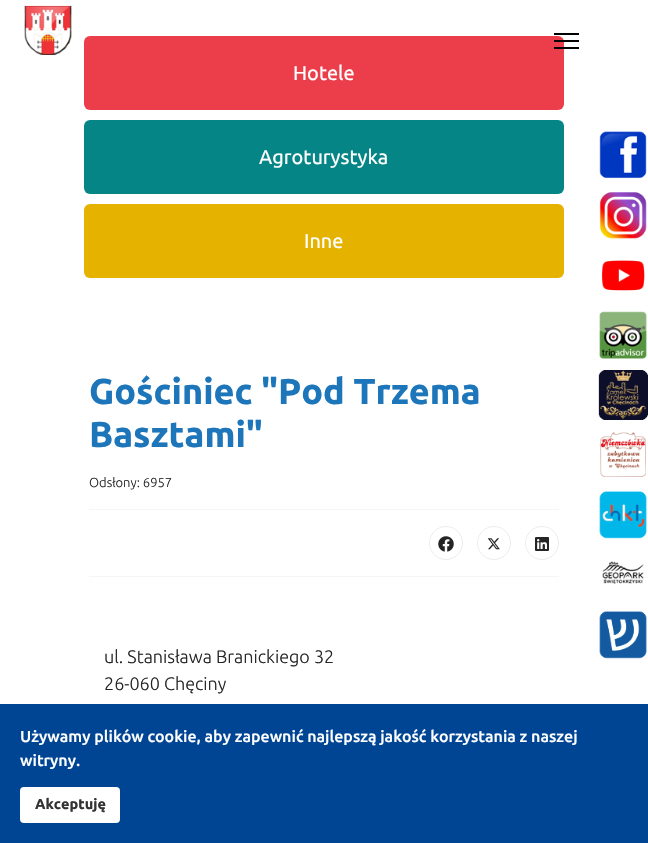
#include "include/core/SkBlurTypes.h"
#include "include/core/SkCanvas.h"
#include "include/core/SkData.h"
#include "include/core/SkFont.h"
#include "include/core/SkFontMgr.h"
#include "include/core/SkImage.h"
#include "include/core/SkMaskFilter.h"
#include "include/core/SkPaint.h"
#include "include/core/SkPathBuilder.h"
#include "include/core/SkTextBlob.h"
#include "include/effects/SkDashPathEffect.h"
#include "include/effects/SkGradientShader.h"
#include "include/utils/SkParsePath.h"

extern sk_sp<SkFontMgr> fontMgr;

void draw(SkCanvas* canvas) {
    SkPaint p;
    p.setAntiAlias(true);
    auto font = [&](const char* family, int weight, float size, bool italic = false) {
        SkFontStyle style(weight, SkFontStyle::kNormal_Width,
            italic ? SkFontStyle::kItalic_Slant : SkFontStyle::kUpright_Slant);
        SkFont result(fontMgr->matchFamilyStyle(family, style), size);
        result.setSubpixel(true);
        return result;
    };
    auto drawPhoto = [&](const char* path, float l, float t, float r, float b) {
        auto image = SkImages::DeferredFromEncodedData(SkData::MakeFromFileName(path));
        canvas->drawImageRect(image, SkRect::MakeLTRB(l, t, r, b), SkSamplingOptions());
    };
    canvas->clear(0xFFFFFFFF);
    drawPhoto("media/1.png", 24, 5, 72, 55);
    p.setColor(0xFF000000);
    canvas->drawRect(SkRect::MakeLTRB(554, 33, 579, 35), p);
    p.setColor(0xFFEB3E4A);
    canvas->drawRoundRect(SkRect::MakeLTRB(84, 36, 564, 110), 6, 6, p);
    p.setColor(0xFF000000);
    canvas->drawRect(SkRect::MakeLTRB(554, 40, 579, 42), p);
    canvas->drawRect(SkRect::MakeLTRB(554, 47, 579, 49), p);
    auto font1 = font("Ubuntu", 400, 20);
    p.setColor(0xFFFFFFFF);
    canvas->drawString("Hotele", 293, 80, font1, p);
    p.setColor(0xFF068587);
    canvas->drawRoundRect(SkRect::MakeLTRB(84, 120, 564, 194), 6, 6, p);
    p.setColor(0xFFFFFFFF);
    canvas->drawString("Agroturystyka", 259, 164, font1, p);
    p.setColor(0xFFE6B200);
    canvas->drawRoundRect(SkRect::MakeLTRB(84, 204, 564, 278), 6, 6, p);
    p.setColor(0xFFFFFFFF);
    canvas->drawString("Inne", 304, 248, font1, p);
    auto font2 = font("Ubuntu", 700, 36);
    p.setColor(0xFF1D75BA);
    canvas->drawString("Gościniec \"Pod Trzema", 89, 404, font2, p);
    canvas->drawString("Basztami\"", 89, 447, font2, p);
    auto font3 = font("Ubuntu", 300, 13);
    p.setColor(0xFF252525);
    canvas->drawString("Odsłony: 6957", 89, 487, font3, p);
    p.setColor(0xFFF5F5F5);
    canvas->drawRect(SkRect::MakeLTRB(89, 509, 559, 510), p);
    canvas->drawRect(SkRect::MakeLTRB(89, 576, 559, 577), p);
    p.setStyle(SkPaint::kStroke_Style);
    p.setStrokeWidth(1);
    p.setColor(0xFFEDEDED);
    canvas->drawCircle(446, 543, 16.5f, p);
    drawPhoto("media/2.png", 438, 536, 454, 552);
    canvas->drawCircle(494, 543, 16.5f, p);
    drawPhoto("media/3.png", 487, 538, 500, 550);
    canvas->drawCircle(542, 543, 16.5f, p);
    drawPhoto("media/4.png", 535, 537, 549, 551);
    auto font4 = font("Ubuntu", 300, 18);
    p.setStyle(SkPaint::kFill_Style);
    p.setColor(0xFF252525);
    canvas->drawString("ul. Stanisława Branickiego 32", 104, 663, font4, p);
    canvas->drawString("26-060 Chęciny", 104, 690, font4, p);
    drawPhoto("media/5.png", 599, 131, 647, 179);
    drawPhoto("media/6.png", 599, 192, 647, 239);
    drawPhoto("media/7.png", 601, 260, 645, 291);
    drawPhoto("media/8.png", 599, 311, 647, 359);
    drawPhoto("media/9.png", 598, 370, 648, 420);
    drawPhoto("media/10.png", 600, 432, 646, 477);
    drawPhoto("media/11.png", 599, 491, 647, 539);
    drawPhoto("media/12.png", 602, 561, 644, 584);
    drawPhoto("media/13.png", 599, 611, 647, 659);
    p.setColor(0xFF004594);
    canvas->drawRect(SkRect::MakeLTRB(0, 704, 648, 843), p);
    auto font5 = font("Ubuntu", 500, 16);
    p.setColor(0xFFFFFFFF);
    canvas->drawString("Używamy plików cookie, aby zapewnić najlepszą jakość korzystania z naszej", 20, 742, font5, p);
    canvas->drawString("witryny.", 20, 766, font5, p);
    canvas->drawRoundRect(SkRect::MakeLTRB(20, 787, 120, 823), 4, 4, p);
    auto font6 = font("Ubuntu", 700, 14.5f);
    p.setColor(0xFF333333);
    canvas->drawString("Akceptuję", 35, 809, font6, p);
}
